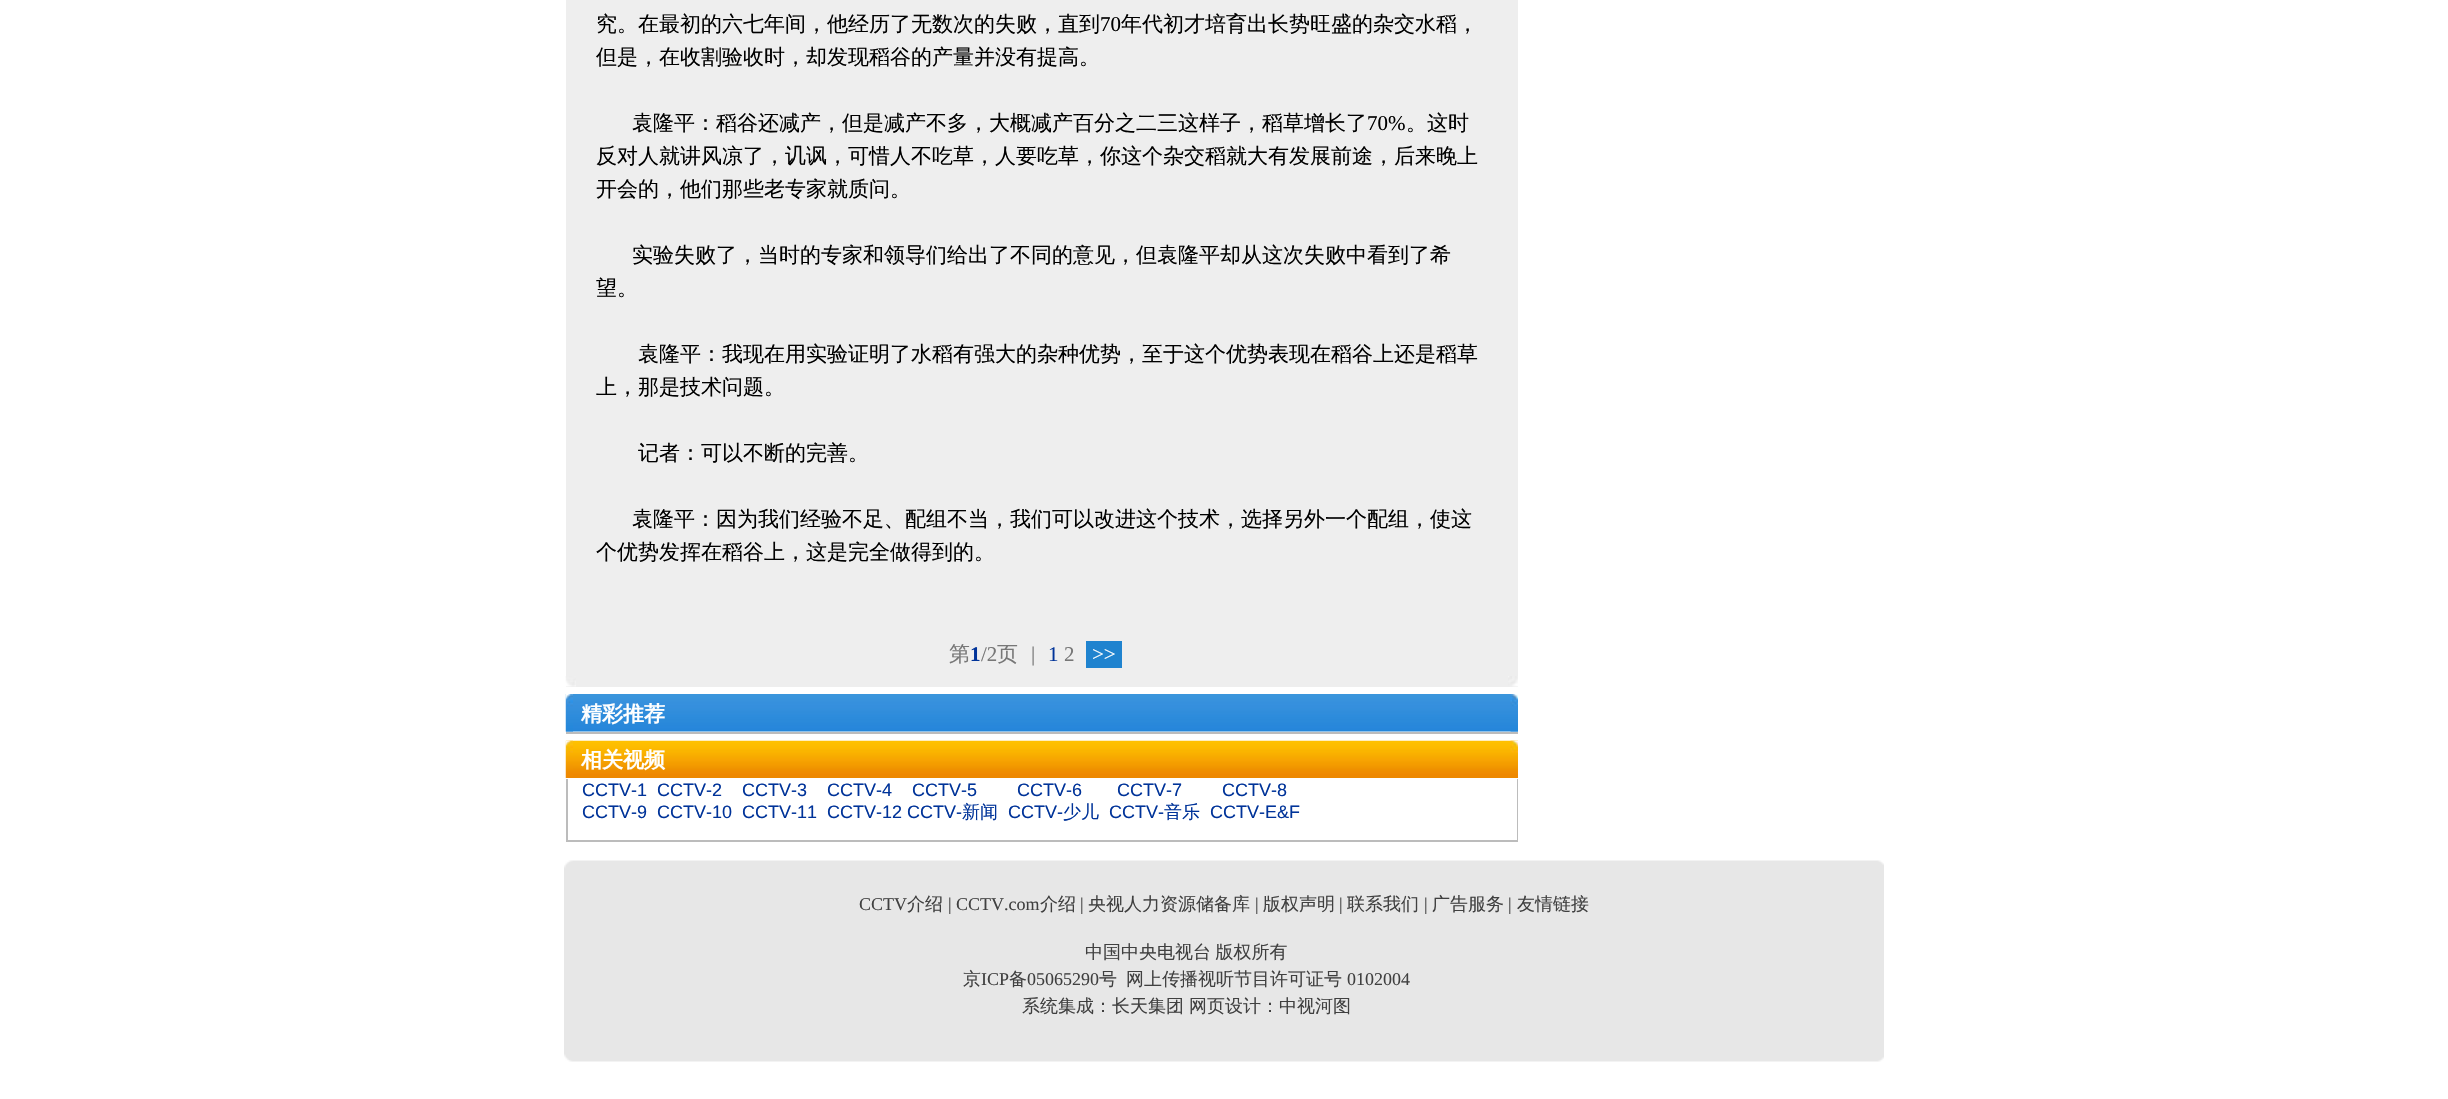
#include "include/core/SkBlurTypes.h"
#include "include/core/SkCanvas.h"
#include "include/core/SkData.h"
#include "include/core/SkFont.h"
#include "include/core/SkFontMgr.h"
#include "include/core/SkImage.h"
#include "include/core/SkMaskFilter.h"
#include "include/core/SkPaint.h"
#include "include/core/SkPathBuilder.h"
#include "include/core/SkTextBlob.h"
#include "include/effects/SkDashPathEffect.h"
#include "include/effects/SkGradientShader.h"
#include "include/utils/SkParsePath.h"

extern sk_sp<SkFontMgr> fontMgr;

void draw(SkCanvas* canvas) {
    SkPaint p;
    p.setAntiAlias(true);
    auto font = [&](const char* family, int weight, float size, bool italic = false) {
        SkFontStyle style(weight, SkFontStyle::kNormal_Width,
            italic ? SkFontStyle::kItalic_Slant : SkFontStyle::kUpright_Slant);
        SkFont result(fontMgr->matchFamilyStyle(family, style), size);
        result.setSubpixel(true);
        return result;
    };
    auto drawTracked = [&](const char* s, float x, float y, const SkFont& font, const SkPaint& ink, float letter, float word) {
        std::vector<SkGlyphID> glyphs(font.countText(s, strlen(s), SkTextEncoding::kUTF8));
        std::vector<float> xs(glyphs.size());
        font.textToGlyphs(s, strlen(s), SkTextEncoding::kUTF8, glyphs);
        font.getXPos(glyphs, xs, x);
        float extra = 0;
        for (size_t i = 0; i < glyphs.size(); i++) {
            xs[i] += extra;
            extra += letter + word * (glyphs[i] == font.unicharToGlyph(' '));
        }
        canvas->drawTextBlob(SkTextBlob::MakeFromPosHGlyphs(glyphs, xs, y, font), 0, 0, ink);
    };
    auto drawPhoto = [&](const char* path, float l, float t, float r, float b) {
        auto image = SkImages::DeferredFromEncodedData(SkData::MakeFromFileName(path));
        canvas->drawImageRect(image, SkRect::MakeLTRB(l, t, r, b), SkSamplingOptions());
    };
    canvas->clear(0xFFFFFFFF);
    p.setColor(0xFFEEEEEE);
    canvas->drawRect(SkRect::MakeLTRB(566, 0, 1518, 687), p);
    auto font1 = font("WenQuanYi Zen Hei", 500, 21);
    p.setColor(0xFF000000);
    canvas->drawString("究。在最初的六七年间，他经历了无数次的失败，直到", 596, 31, font1, p);
    auto font2 = font("Liberation Serif", 400, 21);
    canvas->drawString("70", 1100, 31, font2, p);
    {
        const struct { const char* s; float x, y; } items[] = {
            {"年代初才培育出长势旺盛的杂交水稻，", 1121, 31},
            {"但是，在收割验收时，却发现稻谷的产量并没有提高。", 596, 64},
            {"袁隆平：稻谷还减产，但是减产不多，大概减产百分之二三这样子，稻草增长了", 632, 130},
        };
        for (auto [s, x, y] : items) {
            canvas->drawString(s, x, y, font1, p);
        }
    }
    canvas->drawString("70%", 1367, 130, font2, p);
    {
        const struct { const char* s; float x, y; } items[] = {
            {"。这时", 1406, 130},
            {"反对人就讲风凉了，讥讽，可惜人不吃草，人要吃草，你这个杂交稻就大有发展前途，后来晚上", 596, 163},
            {"开会的，他们那些老专家就质问。", 596, 196},
            {"实验失败了，当时的专家和领导们给出了不同的意见，但袁隆平却从这次失败中看到了希", 632, 262},
            {"望。", 596, 295},
            {"袁隆平：我现在用实验证明了水稻有强大的杂种优势，至于这个优势表现在稻谷上还是稻草", 638, 361},
            {"上，那是技术问题。", 596, 394},
            {"记者：可以不断的完善。", 638, 460},
            {"袁隆平：因为我们经验不足、配组不当，我们可以改进这个技术，选择另外一个配组，使这", 632, 526},
            {"个优势发挥在稻谷上，这是完全做得到的。", 596, 559},
        };
        for (auto [s, x, y] : items) {
            canvas->drawString(s, x, y, font1, p);
        }
    }
    p.setColor(0xFF777777);
    canvas->drawString("第", 949, 661, font1, p);
    auto font3 = font("Liberation Serif", 700, 21);
    p.setColor(0xFF003399);
    canvas->drawString("1", 970, 661, font3, p);
    p.setColor(0xFF777777);
    canvas->drawString("/2", 981, 661, font2, p);
    canvas->drawString("页", 997, 661, font1, p);
    canvas->drawString("|", 1031, 661, font2, p);
    p.setColor(0xFF003399);
    canvas->drawString("1", 1048, 661, font2, p);
    p.setColor(0xFF777777);
    canvas->drawString("2", 1064, 661, font2, p);
    p.setColor(0xFF1F83CF);
    canvas->drawRect(SkRect::MakeLTRB(1086, 641, 1122, 668), p);
    p.setColor(0xFFFFFFFF);
    canvas->drawString(">>", 1092, 661, font2, p);
    drawPhoto("media/1.png", 565, 676, 576, 687);
    drawPhoto("media/2.png", 1508, 676, 1518, 687);
    drawPhoto("media/3.png", 565, 694, 1518, 732);
    drawPhoto("media/4.png", 565, 694, 573, 732);
    auto font4 = font("WenQuanYi Zen Hei", 700, 21);
    canvas->drawString("精彩推荐", 581, 721, font4, p);
    drawPhoto("media/5.png", 1510, 694, 1518, 732);
    p.setColor(0xFFBCBCBC);
    canvas->drawRect(SkRect::MakeLTRB(566, 732, 1518, 734), p);
    drawPhoto("media/6.png", 565, 740, 1518, 778);
    drawPhoto("media/7.png", 1510, 740, 1518, 753);
    drawPhoto("media/8.png", 565, 740, 573, 778);
    p.setColor(0xFFFFFFFF);
    canvas->drawString("相关视频", 581, 767, font4, p);
    {
        const struct { float l, t, r, b; SkColor color; } items[] = {
            {1517, 779, 1518, 842, 0xFFBCBCBC},
            {566, 840, 1518, 842, 0xFFBCBCBC},
            {566, 779, 568, 842, 0xFFBCBCBC},
        };
        for (auto [l, t, r, b, color] : items) {
            p.setColor(color);
            canvas->drawRect(SkRect::MakeLTRB(l, t, r, b), p);
        }
    }
    auto font5 = font("Liberation Sans", 400, 18);
    p.setColor(0xFF003399);
    {
        const struct { const char* s; float x, y; } items[] = {
            {"CCTV-1", 582, 796},
            {"CCTV-2", 657, 796},
            {"CCTV-3", 742, 796},
            {"CCTV-4", 827, 796},
            {"CCTV-5", 912, 796},
            {"CCTV-6", 1017, 796},
            {"CCTV-7", 1117, 796},
            {"CCTV-8", 1222, 796},
            {"CCTV-9", 582, 818},
            {"CCTV-10", 657, 818},
            {"CCTV-11", 742, 818},
            {"CCTV-12 CCTV-", 827, 818},
        };
        for (auto [s, x, y] : items) {
            canvas->drawString(s, x, y, font5, p);
        }
    }
    auto font6 = font("WenQuanYi Zen Hei", 500, 18);
    canvas->drawString("新闻", 962, 818, font6, p);
    canvas->drawString("CCTV-", 1008, 818, font5, p);
    canvas->drawString("少儿", 1063, 818, font6, p);
    canvas->drawString("CCTV-", 1109, 818, font5, p);
    canvas->drawString("音乐", 1164, 818, font6, p);
    canvas->drawString("CCTV-E&F", 1210, 818, font5, p);
    drawPhoto("media/9.png", 564, 860, 1884, 1062);
    auto font7 = font("Liberation Serif", 400, 18);
    p.setColor(0xFF404040);
    canvas->drawString("CCTV", 859, 910, font7, p);
    canvas->drawString("介绍", 907, 910, font6, p);
    canvas->drawString("| CCTV.com", 948, 910, font7, p);
    canvas->drawString("介绍", 1040, 910, font6, p);
    canvas->drawString("|", 1080, 910, font7, p);
    canvas->drawString("央视人力资源储备库", 1088, 910, font6, p);
    canvas->drawString("|", 1255, 910, font7, p);
    canvas->drawString("版权声明", 1263, 910, font6, p);
    canvas->drawString("|", 1339, 910, font7, p);
    canvas->drawString("联系我们", 1347, 910, font6, p);
    canvas->drawString("|", 1424, 910, font7, p);
    canvas->drawString("广告服务", 1432, 910, font6, p);
    canvas->drawString("|", 1508, 910, font7, p);
    canvas->drawString("友情链接", 1517, 910, font6, p);
    drawTracked("中国中央电视台 版权所有", 1085, 958, font6, p, 0, -1);
    canvas->drawString("京", 963, 985, font6, p);
    canvas->drawString("ICP", 981, 985, font7, p);
    canvas->drawString("备", 1009, 985, font6, p);
    canvas->drawString("05065290", 1027, 985, font7, p);
    canvas->drawString("号", 1099, 985, font6, p);
    canvas->drawString("网上传播视听节目许可证号", 1126, 985, font6, p);
    canvas->drawString("0102004", 1347, 985, font7, p);
    canvas->drawString("系统集成：长天集团", 1022, 1012, font6, p);
    canvas->drawString("网页设计：中视河图", 1189, 1012, font6, p);
}
